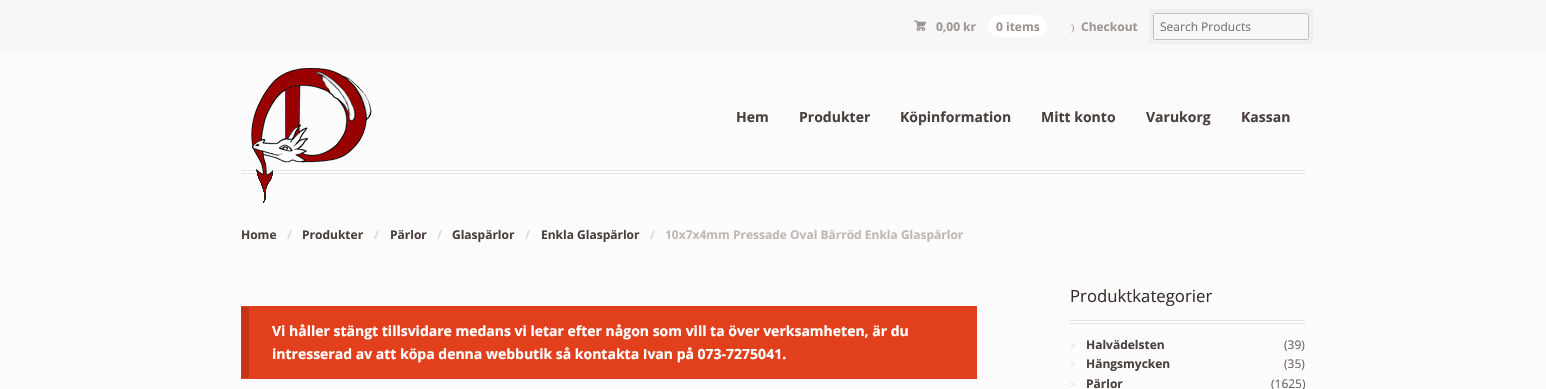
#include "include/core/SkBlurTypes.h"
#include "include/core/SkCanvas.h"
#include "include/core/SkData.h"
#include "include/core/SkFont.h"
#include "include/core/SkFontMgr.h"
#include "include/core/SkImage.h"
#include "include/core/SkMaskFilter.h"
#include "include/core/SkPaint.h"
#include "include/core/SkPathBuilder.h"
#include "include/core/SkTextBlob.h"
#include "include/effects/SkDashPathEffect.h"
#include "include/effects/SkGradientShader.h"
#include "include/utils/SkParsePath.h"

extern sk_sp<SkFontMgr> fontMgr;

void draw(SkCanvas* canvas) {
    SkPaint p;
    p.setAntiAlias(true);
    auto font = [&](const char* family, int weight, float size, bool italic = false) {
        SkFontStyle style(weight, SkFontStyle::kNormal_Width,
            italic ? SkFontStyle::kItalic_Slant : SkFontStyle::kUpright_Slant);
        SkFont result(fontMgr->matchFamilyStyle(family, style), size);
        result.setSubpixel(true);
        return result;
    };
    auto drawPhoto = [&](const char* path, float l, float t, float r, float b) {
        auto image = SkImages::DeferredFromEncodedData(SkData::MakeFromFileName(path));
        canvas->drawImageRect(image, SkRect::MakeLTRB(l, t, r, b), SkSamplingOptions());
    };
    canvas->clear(0xFFFCFCFC);
    p.setColor(0xFFF7F7F7);
    canvas->drawRect(SkRect::MakeLTRB(0, 0, 1546, 53), p);
    auto font1 = font("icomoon", 400, 12);
    p.setColor(0xFF9F9693);
    canvas->drawString("£", 914, 31, font1, p);
    auto font2 = font("Open Sans", 700, 12);
    canvas->drawString("0,00 kr", 936, 31, font2, p);
    p.setColor(0xFFFFFFFF);
    canvas->drawRoundRect(SkRect::MakeLTRB(988, 15, 1047, 37), 11, 11, p);
    p.setColor(0xFF9F9693);
    canvas->drawString("0 items", 996, 31, font2, p);
    auto font3 = font("Liberation Serif", 400, 10);
    canvas->drawString(")", 1071, 31, font3, p);
    canvas->drawString("Checkout", 1081, 31, font2, p);
    p.setColor(0xFFFFFFFF);
    canvas->drawPath(SkPathBuilder().moveTo(1153, 39).cubicTo(1153, 40, 1153, 41, 1154, 41).lineTo(1308, 41).lineTo(1309, 39).cubicTo(1309, 39, 1308, 40, 1308, 40).lineTo(1154, 40).cubicTo(1154, 40, 1153, 39, 1153, 39).close().detach(), p);
    p.setStyle(SkPaint::kStroke_Style);
    p.setStrokeWidth(4);
    p.setColor(0x08000000);
    canvas->drawRect(SkRect::MakeLTRB(1151, 11, 1311, 42), p);
    p.setStrokeWidth(1);
    p.setColor(0xFFC4C0BF);
    canvas->drawRoundRect(SkRect::MakeLTRB(1153.5f, 13.5f, 1308.5f, 39.5f), 1, 1, p);
    auto font4 = font("Open Sans", 400, 12);
    p.setStyle(SkPaint::kFill_Style);
    p.setColor(0xFF757575);
    canvas->drawString("Search Products", 1160, 31, font4, p);
    p.setColor(0xFFE8E4E3);
    canvas->drawRect(SkRect::MakeLTRB(241, 170, 1305, 171), p);
    canvas->drawRect(SkRect::MakeLTRB(241, 173, 1305, 174), p);
    drawPhoto("media/1.png", 251, 68, 372, 203);
    auto font5 = font("Open Sans", 700, 14);
    p.setColor(0xFF4A413E);
    {
        const struct { const char* s; float x, y; } items[] = {
            {"Hem", 736, 122},
            {"Produkter", 799, 122},
            {"Köpinformation", 900, 122},
            {"Mitt konto", 1041, 122},
            {"Varukorg", 1146, 122},
            {"Kassan", 1241, 122},
        };
        for (auto [s, x, y] : items) {
            canvas->drawString(s, x, y, font5, p);
        }
    }
    canvas->drawString("Home", 241, 239, font2, p);
    p.setColor(0xFFE3DAD7);
    canvas->drawString("/", 287, 239, font2, p);
    p.setColor(0xFF4A413E);
    canvas->drawString("Produkter", 302, 239, font2, p);
    p.setColor(0xFFE3DAD7);
    canvas->drawString("/", 374, 239, font2, p);
    p.setColor(0xFF4A413E);
    canvas->drawString("Pärlor", 390, 239, font2, p);
    p.setColor(0xFFE3DAD7);
    canvas->drawString("/", 437, 239, font2, p);
    p.setColor(0xFF4A413E);
    canvas->drawString("Glaspärlor", 452, 239, font2, p);
    p.setColor(0xFFE3DAD7);
    canvas->drawString("/", 525, 239, font2, p);
    p.setColor(0xFF4A413E);
    canvas->drawString("Enkla Glaspärlor", 541, 239, font2, p);
    p.setColor(0xFFE3DAD7);
    canvas->drawString("/", 650, 239, font2, p);
    p.setColor(0xFFC1B8B5);
    canvas->drawString("10x7x4mm Pressade Oval Bärröd Enkla Glaspärlor", 665, 239, font2, p);
    p.setColor(0xFFE2401C);
    canvas->drawRect(SkRect::MakeLTRB(241, 306, 977, 379), p);
    p.setColor(0xFFC03618);
    canvas->drawRect(SkRect::MakeLTRB(241, 307, 249, 378), p);
    p.setColor(0xFFFFFFFF);
    canvas->drawString("Vi håller stängt tillsvidare medans vi letar efter någon som vill ta över verksamheten, är du", 272, 336, font5, p);
    canvas->drawString("intresserad av att köpa denna webbutik så kontakta Ivan på 073-7275041.", 272, 359, font5, p);
    p.setColor(0xFFE8E4E3);
    canvas->drawRect(SkRect::MakeLTRB(1070, 320, 1305, 321), p);
    canvas->drawRect(SkRect::MakeLTRB(1070, 323, 1305, 324), p);
    auto font6 = font("Open Sans", 400, 16.75f);
    p.setColor(0xFF39302D);
    canvas->drawString("Produktkategorier", 1070, 302, font6, p);
    p.setColor(0xFFE3DAD7);
    canvas->drawString(">", 1070, 349, font3, p);
    p.setColor(0xFF4A413E);
    canvas->drawString("Halvädelsten", 1086, 349, font2, p);
    p.setColor(0xFF6C6360);
    canvas->drawString("(39)", 1284, 349, font4, p);
    p.setColor(0xFFE3DAD7);
    canvas->drawString(">", 1070, 368, font3, p);
    p.setColor(0xFF4A413E);
    canvas->drawString("Hängsmycken", 1086, 368, font2, p);
    p.setColor(0xFF6C6360);
    canvas->drawString("(35)", 1284, 368, font4, p);
    p.setColor(0xFFE3DAD7);
    canvas->drawString(">", 1070, 388, font3, p);
    p.setColor(0xFF4A413E);
    canvas->drawString("Pärlor", 1086, 388, font2, p);
    p.setColor(0xFF6C6360);
    canvas->drawString("(1625)", 1271, 388, font4, p);
}
